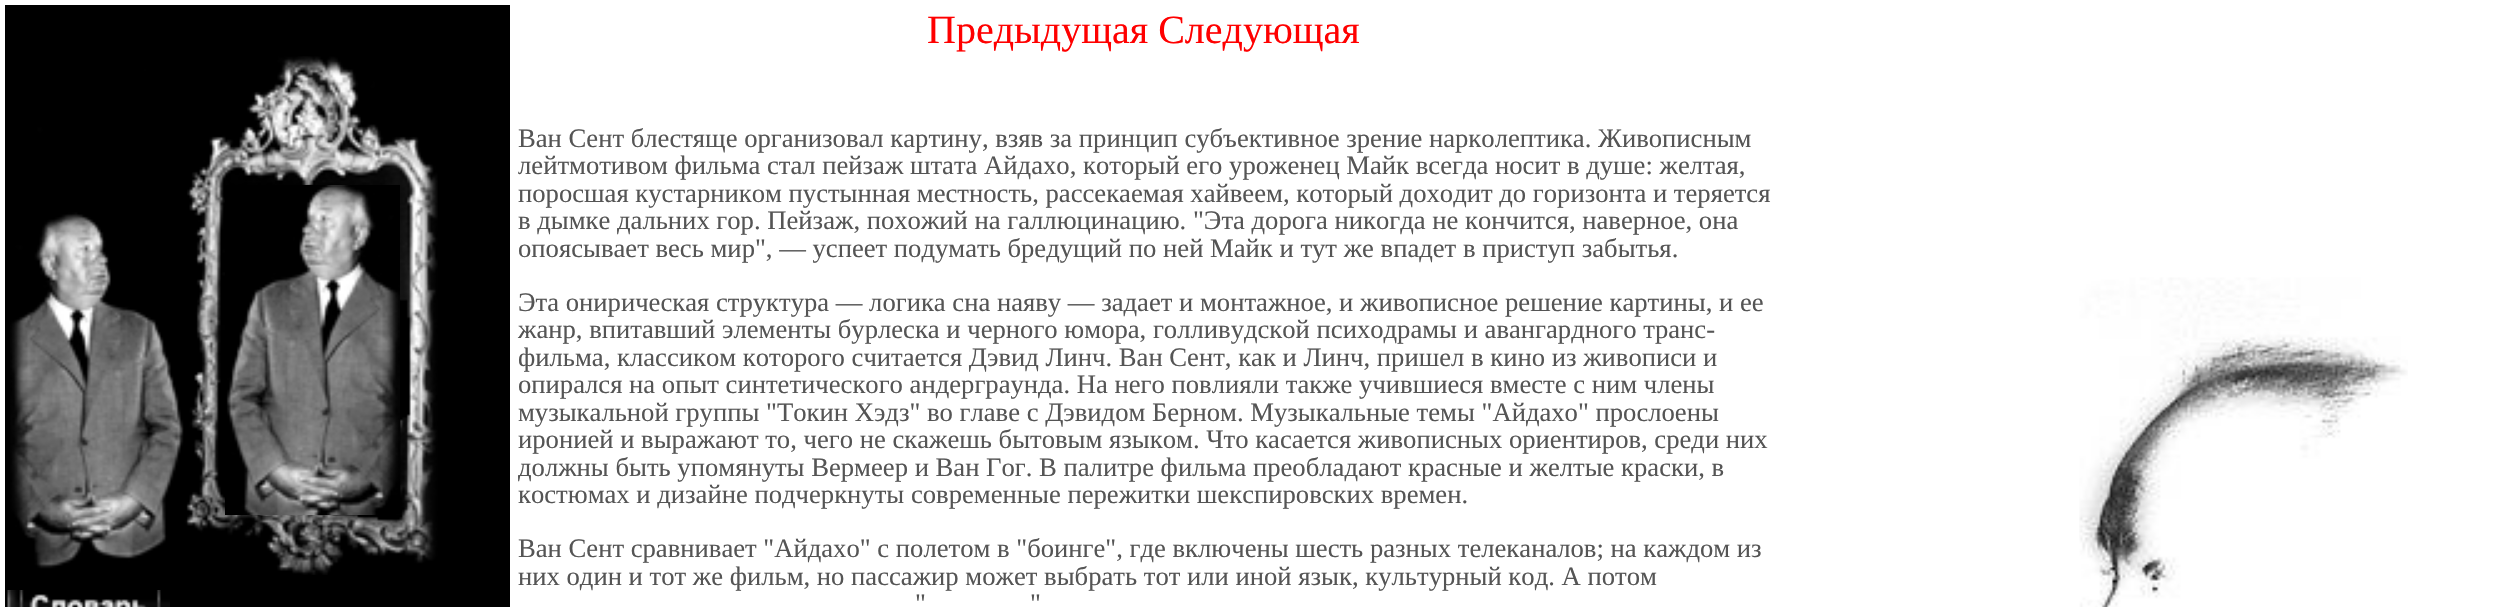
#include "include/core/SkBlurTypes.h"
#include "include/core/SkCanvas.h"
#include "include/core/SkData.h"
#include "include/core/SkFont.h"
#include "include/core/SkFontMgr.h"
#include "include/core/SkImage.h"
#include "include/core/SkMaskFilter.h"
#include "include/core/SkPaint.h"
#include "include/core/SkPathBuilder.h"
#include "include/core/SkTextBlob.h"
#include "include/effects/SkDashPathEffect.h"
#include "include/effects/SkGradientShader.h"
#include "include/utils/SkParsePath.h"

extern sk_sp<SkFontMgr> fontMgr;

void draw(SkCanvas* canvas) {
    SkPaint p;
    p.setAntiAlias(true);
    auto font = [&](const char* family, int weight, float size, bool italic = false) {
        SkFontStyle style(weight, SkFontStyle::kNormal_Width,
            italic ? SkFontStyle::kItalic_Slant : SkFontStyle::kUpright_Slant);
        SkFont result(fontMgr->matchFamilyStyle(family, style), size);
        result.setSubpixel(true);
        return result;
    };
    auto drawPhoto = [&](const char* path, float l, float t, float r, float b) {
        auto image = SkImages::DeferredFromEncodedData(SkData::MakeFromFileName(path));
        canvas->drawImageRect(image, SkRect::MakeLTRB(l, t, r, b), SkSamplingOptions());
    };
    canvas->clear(0xFFFFFFFF);
    p.setColor(0xFF000000);
    canvas->drawRect(SkRect::MakeLTRB(5, 5, 510, 607), p);
    drawPhoto("media/1.png", 10, 56, 438, 575);
    drawPhoto("media/2.png", 225, 185, 400, 515);
    drawPhoto("media/3.png", 7, 590, 170, 607);
    auto font1 = font("Liberation Serif", 400, 40);
    p.setColor(0xFFFF0000);
    canvas->drawString("Предыдущая Следующая", 927, 43, font1, p);
    auto font2 = font("Liberation Serif", 400, 26.65f);
    p.setColor(0xFF555555);
    {
        const struct { const char* s; float x, y; } items[] = {
            {"Ван Сент блестяще организовал картину, взяв за принцип субъективное зрение нарколептика. Живописным", 518, 147},
            {"лейтмотивом фильма стал пейзаж штата Айдахо, который его уроженец Майк всегда носит в душе: желтая,", 518, 174},
            {"поросшая кустарником пустынная местность, рассекаемая хайвеем, который доходит до горизонта и теряется", 518, 202},
            {"в дымке дальних гор. Пейзаж, похожий на галлюцинацию. \"Эта дорога никогда не кончится, наверное, она", 518, 229},
            {"опоясывает весь мир\", — успеет подумать бредущий по ней Майк и тут же впадет в приступ забытья.", 518, 257},
            {"Эта онирическая структура — логика сна наяву — задает и монтажное, и живописное решение картины, и ее", 518, 311},
            {"жанр, впитавший элементы бурлеска и черного юмора, голливудской психодрамы и авангардного транс-", 518, 338},
            {"фильма, классиком которого считается Дэвид Линч. Ван Сент, как и Линч, пришел в кино из живописи и", 518, 366},
            {"опирался на опыт синтетического андерграунда. На него повлияли также учившиеся вместе с ним члены", 518, 393},
            {"музыкальной группы \"Токин Хэдз\" во главе с Дэвидом Берном. Музыкальные темы \"Айдахо\" прослоены", 518, 421},
            {"иронией и выражают то, чего не скажешь бытовым языком. Что касается живописных ориентиров, среди них", 518, 448},
            {"должны быть упомянуты Вермеер и Ван Гог. В палитре фильма преобладают красные и желтые краски, в", 518, 476},
            {"костюмах и дизайне подчеркнуты современные пережитки шекспировских времен.", 518, 503},
            {"Ван Сент сравнивает \"Айдахо\" с полетом в \"боинге\", где включены шесть разных телеканалов; на каждом из", 518, 557},
            {"них один и тот же фильм, но пассажир может выбрать тот или иной язык, культурный код. А потом", 518, 585},
            {"\"", 915, 612},
            {"\"", 1030, 612},
        };
        for (auto [s, x, y] : items) {
            canvas->drawString(s, x, y, font2, p);
        }
    }
    drawPhoto("media/4.png", 2079, 277, 2408, 607);
}
